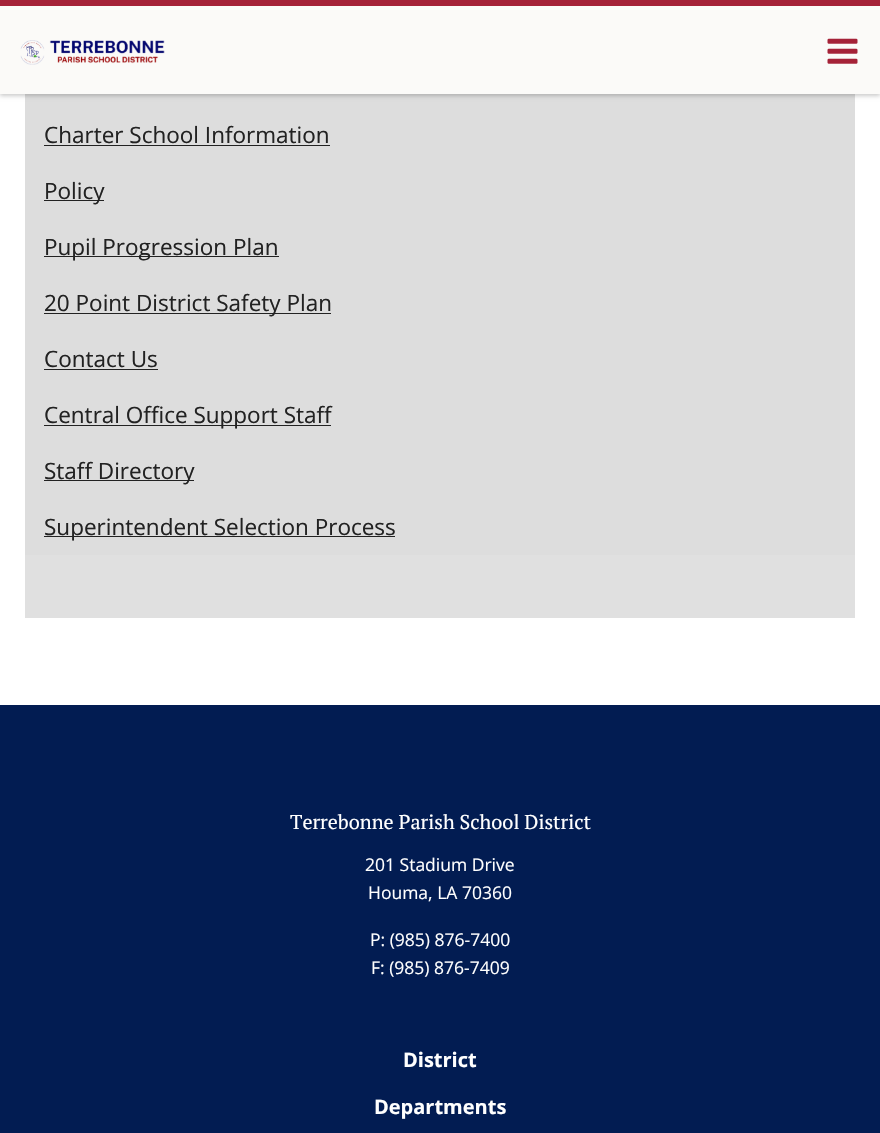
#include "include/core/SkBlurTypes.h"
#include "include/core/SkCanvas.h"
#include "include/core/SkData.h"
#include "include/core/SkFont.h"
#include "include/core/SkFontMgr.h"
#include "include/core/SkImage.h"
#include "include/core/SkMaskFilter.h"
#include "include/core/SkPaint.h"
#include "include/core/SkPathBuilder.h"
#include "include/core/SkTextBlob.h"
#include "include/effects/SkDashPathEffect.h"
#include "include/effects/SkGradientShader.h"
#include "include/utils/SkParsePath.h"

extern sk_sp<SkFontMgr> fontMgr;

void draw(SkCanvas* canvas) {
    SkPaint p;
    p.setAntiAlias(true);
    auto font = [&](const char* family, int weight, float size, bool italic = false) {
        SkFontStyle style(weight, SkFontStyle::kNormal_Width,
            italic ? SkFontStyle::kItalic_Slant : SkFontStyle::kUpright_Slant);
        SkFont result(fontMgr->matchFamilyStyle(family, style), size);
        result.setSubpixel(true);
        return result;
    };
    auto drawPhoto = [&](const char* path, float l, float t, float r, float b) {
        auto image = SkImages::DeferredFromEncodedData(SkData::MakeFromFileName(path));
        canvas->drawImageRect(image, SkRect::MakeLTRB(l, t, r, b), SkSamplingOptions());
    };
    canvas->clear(0xFFFFFFFF);
    p.setColor(0xFFDDDDDD);
    canvas->drawRect(SkRect::MakeLTRB(25, 94, 855, 555), p);
    p.setColor(0x33000000);
    p.setMaskFilter(SkMaskFilter::MakeBlur(kNormal_SkBlurStyle, 2));
    canvas->drawRect(SkRect::MakeLTRB(0, 3, 880, 96), p);
    p.setMaskFilter(nullptr);
    p.setColor(0xFFFBFAF8);
    canvas->drawRect(SkRect::MakeLTRB(0, 6, 880, 94), p);
    p.setColor(0xFFA52238);
    canvas->drawRect(SkRect::MakeLTRB(0, 0, 880, 6), p);
    drawPhoto("media/1.png", 20, 40, 165, 65);
    drawPhoto("media/2.png", 827, 38, 858, 64);
    p.setColor(0xFFE0E0E0);
    canvas->drawRect(SkRect::MakeLTRB(25, 555, 855, 618), p);
    auto font1 = font("Open Sans", 400, 22.5f);
    p.setColor(0xFF222222);
    canvas->drawString("Charter School Information", 44, 143, font1, p);
    canvas->drawRect(SkRect::MakeLTRB(44, 145, 330, 146), p);
    canvas->drawRect(SkRect::MakeLTRB(44, 200, 104, 201), p);
    canvas->drawString("Policy", 44, 199, font1, p);
    canvas->drawRect(SkRect::MakeLTRB(44, 256, 279, 257), p);
    canvas->drawString("Pupil Progression Plan", 44, 255, font1, p);
    canvas->drawRect(SkRect::MakeLTRB(44, 313, 331, 314), p);
    canvas->drawString("20 Point District Safety Plan", 44, 311, font1, p);
    canvas->drawString("Contact Us", 44, 367, font1, p);
    canvas->drawRect(SkRect::MakeLTRB(44, 369, 158, 370), p);
    canvas->drawRect(SkRect::MakeLTRB(44, 425, 331, 426), p);
    canvas->drawString("Central Office Support Staff", 44, 423, font1, p);
    canvas->drawRect(SkRect::MakeLTRB(44, 480, 194, 481), p);
    canvas->drawString("Staff Directory", 44, 479, font1, p);
    canvas->drawRect(SkRect::MakeLTRB(44, 536, 395, 537), p);
    canvas->drawString("Superintendent Selection Process", 44, 535, font1, p);
    p.setColor(0xFF021C52);
    canvas->drawRect(SkRect::MakeLTRB(0, 705, 880, 1133), p);
    auto font2 = font("PT Serif", 400, 20);
    p.setColor(0xFFFFFFFF);
    canvas->drawString("Terrebonne Parish School District", 290, 829, font2, p);
    auto font3 = font("Open Sans", 400, 17.5f);
    {
        const struct { const char* s; float x, y; } items[] = {
            {"201 Stadium Drive", 365, 871},
            {"Houma, LA 70360", 368, 899},
            {"P: (985) 876-7400", 370, 946},
            {"F: (985) 876-7409", 371, 974},
        };
        for (auto [s, x, y] : items) {
            canvas->drawString(s, x, y, font3, p);
        }
    }
    auto font4 = font("Open Sans", 700, 20);
    canvas->drawString("District", 403, 1067, font4, p);
    canvas->drawString("Departments", 374, 1114, font4, p);
}
